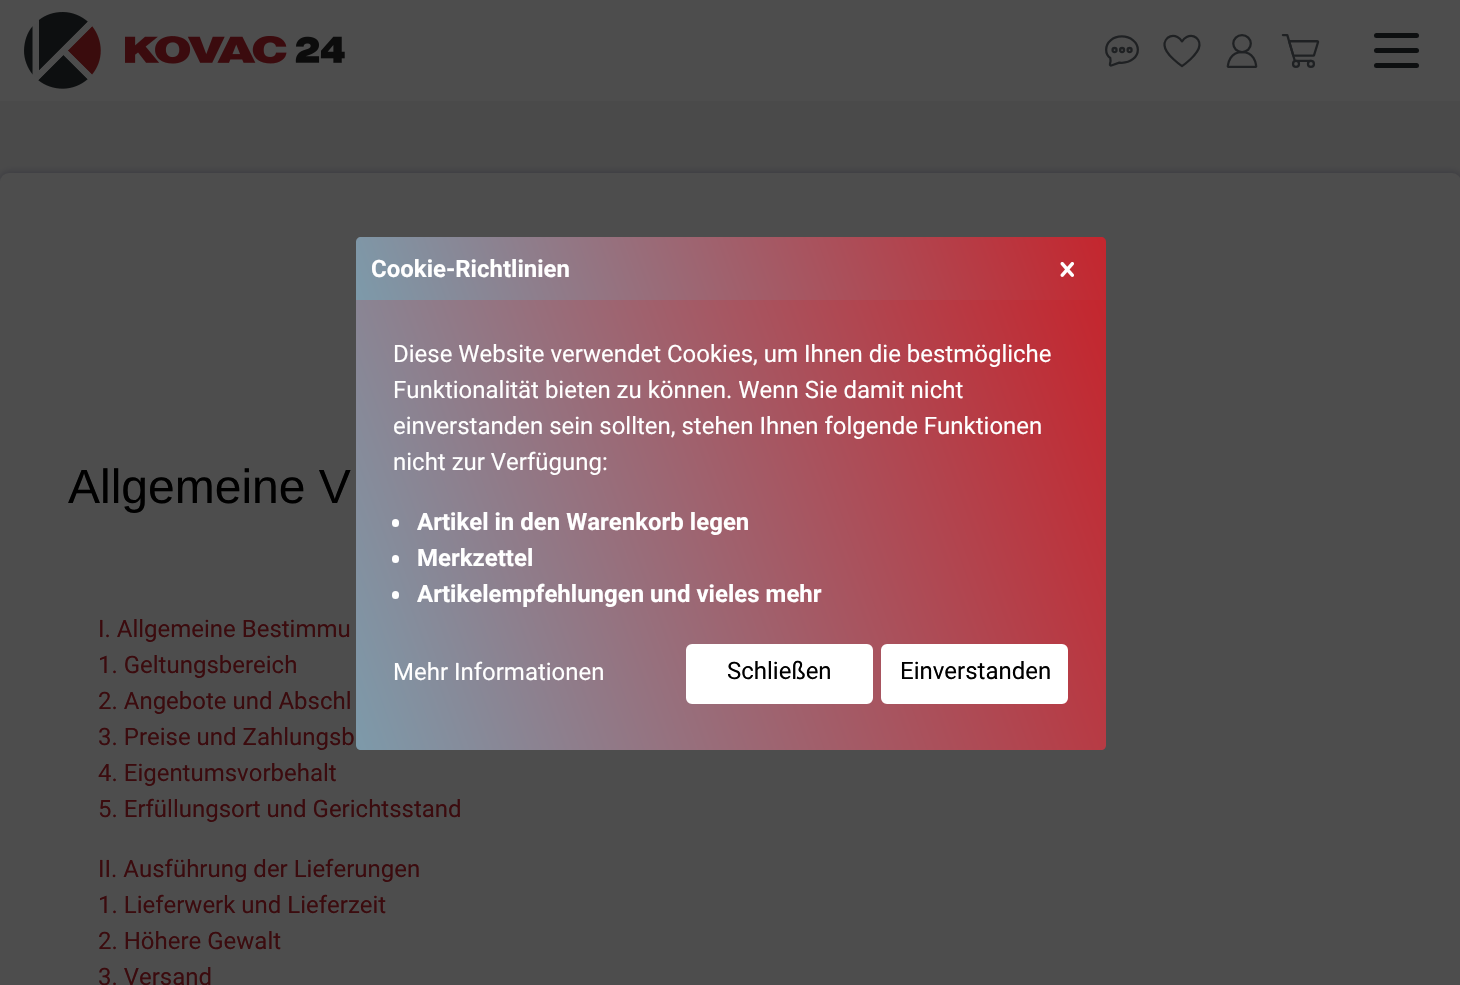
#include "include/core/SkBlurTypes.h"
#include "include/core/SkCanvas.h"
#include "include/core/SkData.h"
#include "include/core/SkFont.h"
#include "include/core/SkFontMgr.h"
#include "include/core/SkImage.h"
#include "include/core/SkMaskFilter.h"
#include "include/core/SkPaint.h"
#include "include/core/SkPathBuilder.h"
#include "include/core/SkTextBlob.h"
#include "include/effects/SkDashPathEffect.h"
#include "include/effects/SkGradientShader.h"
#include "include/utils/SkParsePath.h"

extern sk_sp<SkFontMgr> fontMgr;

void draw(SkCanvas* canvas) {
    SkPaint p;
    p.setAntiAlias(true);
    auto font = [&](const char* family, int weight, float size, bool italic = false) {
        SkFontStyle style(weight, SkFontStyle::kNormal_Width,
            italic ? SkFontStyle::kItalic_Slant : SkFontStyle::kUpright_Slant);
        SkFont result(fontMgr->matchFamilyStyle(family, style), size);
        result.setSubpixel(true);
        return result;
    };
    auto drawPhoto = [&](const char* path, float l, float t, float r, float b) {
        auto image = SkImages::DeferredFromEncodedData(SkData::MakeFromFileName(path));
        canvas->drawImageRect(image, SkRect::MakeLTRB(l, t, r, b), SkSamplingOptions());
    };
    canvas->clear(0xFF4A4A4A);
    p.setColor(0xFF4D4D4D);
    canvas->drawRect(SkRect::MakeLTRB(0, 0, 1460, 101), p);
    drawPhoto("media/1.png", 24, 12, 101, 89);
    drawPhoto("media/2.png", 125, 36, 345, 64);
    drawPhoto("media/3.png", 1105, 35, 1139, 67);
    drawPhoto("media/4.png", 1163, 34, 1201, 68);
    drawPhoto("media/5.png", 1226, 34, 1258, 68);
    drawPhoto("media/6.png", 1281, 34, 1320, 68);
    p.setColor(0xFF0D0F10);
    canvas->drawRoundRect(SkRect::MakeLTRB(1374, 33, 1419, 38), 2.5f, 2.5f, p);
    canvas->drawRoundRect(SkRect::MakeLTRB(1374, 48, 1419, 53), 2.5f, 2.5f, p);
    canvas->drawRoundRect(SkRect::MakeLTRB(1374, 63, 1419, 68), 2.5f, 2.5f, p);
    p.setColor(0xFF3D3D42);
    p.setMaskFilter(SkMaskFilter::MakeBlur(kNormal_SkBlurStyle, 3));
    canvas->drawRoundRect(SkRect::MakeLTRB(-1, 171, 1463, 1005), 11, 11, p);
    p.setMaskFilter(nullptr);
    p.setColor(0xFF4D4D4D);
    canvas->drawRoundRect(SkRect::MakeLTRB(0, 173, 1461, 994), 9, 9, p);
    auto font1 = font("Liberation Sans", 400, 48);
    p.setColor(0xFF000000);
    canvas->drawString("Allgemeine V", 68, 503, font1, p);
    auto font2 = font("Roboto", 400, 24);
    p.setColor(0xFF3B0B0E);
    {
        const struct { const char* s; float x, y; } items[] = {
            {"I. Allgemeine Bestimmu", 98, 637},
            {"1. Geltungsbereich", 98, 673},
            {"2. Angebote und Abschl", 98, 709},
            {"3. Preise und Zahlungsb", 98, 745},
            {"4. Eigentumsvorbehalt", 98, 781},
            {"5. Erfüllungsort und Gerichtsstand", 98, 817},
            {"II. Ausführung der Lieferungen", 98, 877},
            {"1. Lieferwerk und Lieferzeit", 98, 913},
            {"2. Höhere Gewalt", 98, 949},
            {"3. Versand", 98, 985},
        };
        for (auto [s, x, y] : items) {
            canvas->drawString(s, x, y, font2, p);
        }
    }
    {
        const SkColor colors[] = {0xFFC4262E, 0xFF7D9AAA};
        const float stops[] = {0, 1};
        const SkPoint ends[] = {{1072, 144}, {389, 393}};
        p.setShader(SkGradientShader::MakeLinear(ends, colors, stops, 2, SkTileMode::kClamp));
        p.setAlpha(255);
    }
    canvas->drawPath(SkPathBuilder().moveTo(361, 237).lineTo(1101, 237).cubicTo(1104, 237, 1106, 239, 1106, 242).lineTo(1106, 300).lineTo(356, 300).lineTo(356, 242).cubicTo(356, 239, 358, 237, 361, 237).close().detach(), p);
    auto font3 = font("Roboto", 700, 24);
    p.setShader(nullptr);
    p.setColor(0xFFFFFFFF);
    canvas->drawString("Cookie-Richtlinien", 371, 277, font3, p);
    drawPhoto("media/7.png", 1060, 262, 1074, 277);
    {
        const SkColor colors[] = {0xFFC4262E, 0xFF7D9AAA};
        const float stops[] = {0, 1};
        const SkPoint ends[] = {{1134, 378}, {327, 672}};
        p.setShader(SkGradientShader::MakeLinear(ends, colors, stops, 2, SkTileMode::kClamp));
        p.setAlpha(255);
    }
    canvas->drawPath(SkPathBuilder().moveTo(356, 300).lineTo(1106, 300).lineTo(1106, 745).cubicTo(1106, 748, 1104, 750, 1101, 750).lineTo(361, 750).cubicTo(358, 750, 356, 748, 356, 745).close().detach(), p);
    p.setShader(nullptr);
    p.setColor(0xFFFFFFFF);
    {
        const struct { const char* s; float x, y; } items[] = {
            {"Diese Website verwendet Cookies, um Ihnen die bestmögliche", 393, 362},
            {"Funktionalität bieten zu können. Wenn Sie damit nicht", 393, 398},
            {"einverstanden sein sollten, stehen Ihnen folgende Funktionen", 393, 434},
            {"nicht zur Verfügung:", 393, 470},
        };
        for (auto [s, x, y] : items) {
            canvas->drawString(s, x, y, font2, p);
        }
    }
    canvas->drawRoundRect(SkRect::MakeLTRB(392, 519, 399, 527), 3.5f, 3.5f, p);
    canvas->drawString("Artikel in den Warenkorb legen", 417, 530, font3, p);
    canvas->drawRoundRect(SkRect::MakeLTRB(392, 555, 399, 563), 3.5f, 3.5f, p);
    canvas->drawString("Merkzettel", 417, 566, font3, p);
    canvas->drawRoundRect(SkRect::MakeLTRB(392, 591, 399, 599), 3.5f, 3.5f, p);
    canvas->drawString("Artikelempfehlungen und vieles mehr", 417, 602, font3, p);
    canvas->drawString("Mehr Informationen", 393, 680, font2, p);
    canvas->drawRoundRect(SkRect::MakeLTRB(687, 645, 872, 703), 5, 5, p);
    p.setStyle(SkPaint::kStroke_Style);
    p.setStrokeWidth(2);
    canvas->drawRoundRect(SkRect::MakeLTRB(687, 645, 872, 703), 5, 5, p);
    p.setStyle(SkPaint::kFill_Style);
    p.setColor(0xFF000000);
    canvas->drawString("Schließen", 727, 679, font2, p);
    p.setColor(0xFFFFFFFF);
    canvas->drawRoundRect(SkRect::MakeLTRB(882, 645, 1067, 703), 5, 5, p);
    p.setStyle(SkPaint::kStroke_Style);
    canvas->drawRoundRect(SkRect::MakeLTRB(882, 645, 1067, 703), 5, 5, p);
    p.setStyle(SkPaint::kFill_Style);
    p.setColor(0xFF000000);
    canvas->drawString("Einverstanden", 900, 679, font2, p);
}
